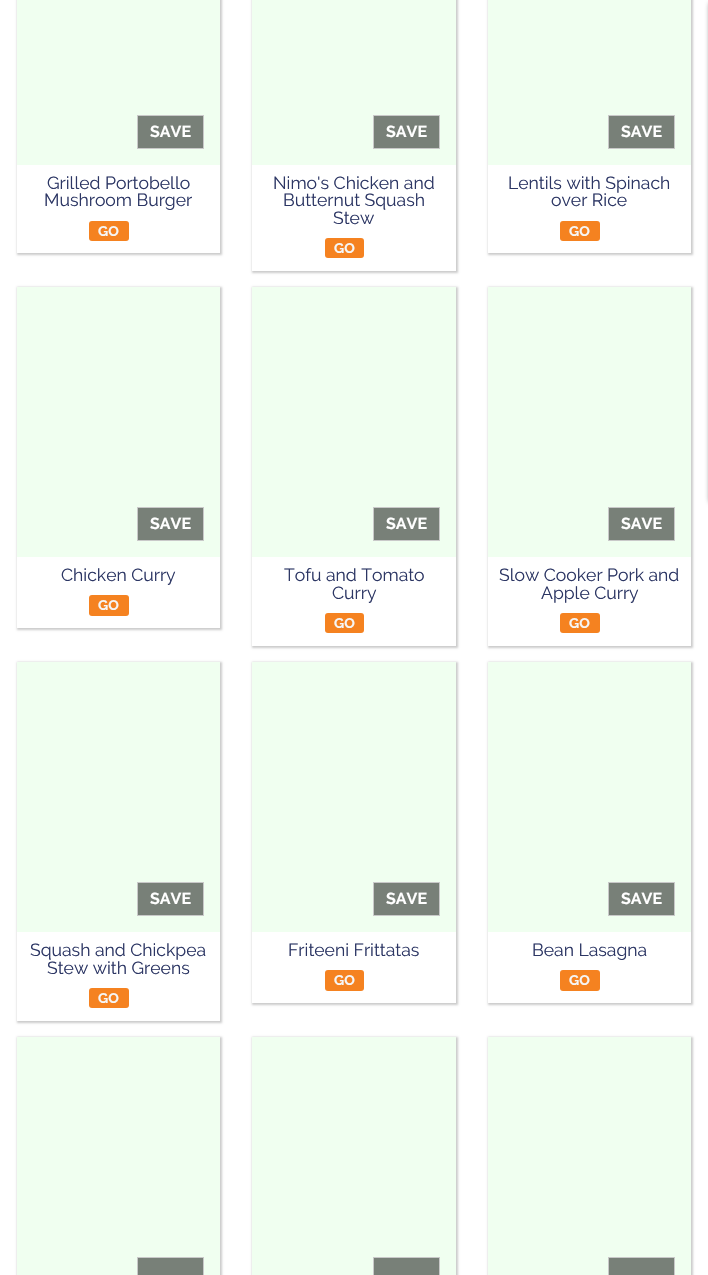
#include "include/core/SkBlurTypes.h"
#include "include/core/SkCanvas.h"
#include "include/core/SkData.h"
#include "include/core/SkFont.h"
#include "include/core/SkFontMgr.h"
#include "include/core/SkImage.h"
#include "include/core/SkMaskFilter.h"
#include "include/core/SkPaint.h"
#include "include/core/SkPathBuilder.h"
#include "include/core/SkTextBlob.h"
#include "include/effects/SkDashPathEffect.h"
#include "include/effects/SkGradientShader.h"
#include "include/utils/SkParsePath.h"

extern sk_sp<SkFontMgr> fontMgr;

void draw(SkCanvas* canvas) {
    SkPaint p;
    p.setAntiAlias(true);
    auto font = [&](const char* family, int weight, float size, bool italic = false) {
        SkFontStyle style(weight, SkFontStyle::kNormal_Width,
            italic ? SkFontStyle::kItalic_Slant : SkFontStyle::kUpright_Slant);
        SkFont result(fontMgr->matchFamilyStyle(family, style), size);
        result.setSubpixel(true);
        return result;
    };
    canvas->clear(0xFFFFFFFF);
    canvas->save();
    canvas->clipPath(SkPathBuilder(SkPathFillType::kEvenOdd).moveTo(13, 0).lineTo(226, 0).lineTo(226, 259).lineTo(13, 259).close().moveTo(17, -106).lineTo(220, -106).lineTo(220, 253).lineTo(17, 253).close().detach(), true);
    p.setColor(0x33000000);
    p.setMaskFilter(SkMaskFilter::MakeBlur(kNormal_SkBlurStyle, 1));
    canvas->drawRect(SkRect::MakeLTRB(17, -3, 222, 255), p);
    p.setMaskFilter(nullptr);
    canvas->restore();
    p.setColor(0xFFF0FFF0);
    canvas->drawRect(SkRect::MakeLTRB(17, 0, 220, 165), p);
    p.setColor(0xFF788078);
    canvas->drawRect(SkRect::MakeLTRB(137.5f, 115.5f, 203.5f, 148.5f), p);
    p.setStyle(SkPaint::kStroke_Style);
    p.setStrokeWidth(1);
    p.setColor(0xFFC9C9C9);
    canvas->drawRect(SkRect::MakeLTRB(137.5f, 115.5f, 203.5f, 148.5f), p);
    auto font1 = font("Raleway", 700, 16);
    p.setStyle(SkPaint::kFill_Style);
    p.setColor(0xFFFFFFFF);
    canvas->drawString("SAVE", 150, 137, font1, p);
    auto font2 = font("Raleway", 400, 17.6f);
    p.setColor(0xFF2C3664);
    canvas->drawString("Grilled Portobello", 47, 189, font2, p);
    canvas->drawString("Mushroom Burger", 44, 206, font2, p);
    p.setColor(0xFFF58220);
    canvas->drawRoundRect(SkRect::MakeLTRB(89, 221, 129, 241), 3, 3, p);
    auto font3 = font("Raleway", 700, 14);
    p.setColor(0xFFF6F6F6);
    canvas->drawString("GO", 98, 236, font3, p);
    canvas->save();
    canvas->clipPath(SkPathBuilder(SkPathFillType::kEvenOdd).moveTo(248, 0).lineTo(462, 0).lineTo(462, 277).lineTo(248, 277).close().moveTo(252, -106).lineTo(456, -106).lineTo(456, 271).lineTo(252, 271).close().detach(), true);
    p.setColor(0x33000000);
    p.setMaskFilter(SkMaskFilter::MakeBlur(kNormal_SkBlurStyle, 1));
    canvas->drawRect(SkRect::MakeLTRB(252, -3, 458, 273), p);
    p.setMaskFilter(nullptr);
    canvas->restore();
    p.setColor(0xFFF0FFF0);
    canvas->drawRect(SkRect::MakeLTRB(252, 0, 456, 165), p);
    p.setColor(0xFF788078);
    canvas->drawRect(SkRect::MakeLTRB(373.5f, 115.5f, 439.5f, 148.5f), p);
    p.setStyle(SkPaint::kStroke_Style);
    p.setColor(0xFFC9C9C9);
    canvas->drawRect(SkRect::MakeLTRB(373.5f, 115.5f, 439.5f, 148.5f), p);
    p.setStyle(SkPaint::kFill_Style);
    p.setColor(0xFFFFFFFF);
    canvas->drawString("SAVE", 386, 137, font1, p);
    p.setColor(0xFF2C3664);
    {
        const struct { const char* s; float x, y; } items[] = {
            {"Nimo's Chicken and", 273, 189},
            {"Butternut Squash", 283, 206},
            {"Stew", 333, 224},
        };
        for (auto [s, x, y] : items) {
            canvas->drawString(s, x, y, font2, p);
        }
    }
    p.setColor(0xFFF58220);
    canvas->drawRoundRect(SkRect::MakeLTRB(325, 238, 364, 258), 3, 3, p);
    p.setColor(0xFFF6F6F6);
    canvas->drawString("GO", 334, 253, font3, p);
    canvas->save();
    canvas->clipPath(SkPathBuilder(SkPathFillType::kEvenOdd).moveTo(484, 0).lineTo(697, 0).lineTo(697, 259).lineTo(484, 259).close().moveTo(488, -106).lineTo(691, -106).lineTo(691, 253).lineTo(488, 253).close().detach(), true);
    p.setColor(0x33000000);
    p.setMaskFilter(SkMaskFilter::MakeBlur(kNormal_SkBlurStyle, 1));
    canvas->drawRect(SkRect::MakeLTRB(488, -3, 693, 255), p);
    p.setMaskFilter(nullptr);
    canvas->restore();
    p.setColor(0xFFF0FFF0);
    canvas->drawRect(SkRect::MakeLTRB(488, 0, 691, 165), p);
    p.setColor(0xFF788078);
    canvas->drawRect(SkRect::MakeLTRB(608.5f, 115.5f, 674.5f, 148.5f), p);
    p.setStyle(SkPaint::kStroke_Style);
    p.setColor(0xFFC9C9C9);
    canvas->drawRect(SkRect::MakeLTRB(608.5f, 115.5f, 674.5f, 148.5f), p);
    p.setStyle(SkPaint::kFill_Style);
    p.setColor(0xFFFFFFFF);
    canvas->drawString("SAVE", 621, 137, font1, p);
    p.setColor(0xFF2C3664);
    canvas->drawString("Lentils with Spinach", 508, 189, font2, p);
    canvas->drawString("over Rice", 551, 206, font2, p);
    p.setColor(0xFFF58220);
    canvas->drawRoundRect(SkRect::MakeLTRB(560, 221, 600, 241), 3, 3, p);
    p.setColor(0xFFF6F6F6);
    canvas->drawString("GO", 569, 236, font3, p);
    canvas->save();
    canvas->clipPath(SkPathBuilder(SkPathFillType::kEvenOdd).moveTo(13, 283).lineTo(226, 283).lineTo(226, 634).lineTo(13, 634).close().moveTo(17, 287).lineTo(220, 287).lineTo(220, 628).lineTo(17, 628).close().detach(), true);
    p.setColor(0x33000000);
    p.setMaskFilter(SkMaskFilter::MakeBlur(kNormal_SkBlurStyle, 1));
    canvas->drawRect(SkRect::MakeLTRB(17, 287, 222, 630), p);
    p.setMaskFilter(nullptr);
    canvas->restore();
    p.setColor(0xFFF0FFF0);
    canvas->drawRect(SkRect::MakeLTRB(17, 287, 220, 557), p);
    p.setColor(0xFF788078);
    canvas->drawRect(SkRect::MakeLTRB(137.5f, 507.5f, 203.5f, 540.5f), p);
    p.setStyle(SkPaint::kStroke_Style);
    p.setColor(0xFFC9C9C9);
    canvas->drawRect(SkRect::MakeLTRB(137.5f, 507.5f, 203.5f, 540.5f), p);
    p.setStyle(SkPaint::kFill_Style);
    p.setColor(0xFFFFFFFF);
    canvas->drawString("SAVE", 150, 529, font1, p);
    p.setColor(0xFF2C3664);
    canvas->drawString("Chicken Curry", 61, 581, font2, p);
    p.setColor(0xFFF58220);
    canvas->drawRoundRect(SkRect::MakeLTRB(89, 595, 129, 616), 3, 3, p);
    p.setColor(0xFFF6F6F6);
    canvas->drawString("GO", 98, 610, font3, p);
    canvas->save();
    canvas->clipPath(SkPathBuilder(SkPathFillType::kEvenOdd).moveTo(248, 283).lineTo(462, 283).lineTo(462, 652).lineTo(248, 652).close().moveTo(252, 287).lineTo(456, 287).lineTo(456, 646).lineTo(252, 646).close().detach(), true);
    p.setColor(0x33000000);
    p.setMaskFilter(SkMaskFilter::MakeBlur(kNormal_SkBlurStyle, 1));
    canvas->drawRect(SkRect::MakeLTRB(252, 287, 458, 648), p);
    p.setMaskFilter(nullptr);
    canvas->restore();
    p.setColor(0xFFF0FFF0);
    canvas->drawRect(SkRect::MakeLTRB(252, 287, 456, 557), p);
    p.setColor(0xFF788078);
    canvas->drawRect(SkRect::MakeLTRB(373.5f, 507.5f, 439.5f, 540.5f), p);
    p.setStyle(SkPaint::kStroke_Style);
    p.setColor(0xFFC9C9C9);
    canvas->drawRect(SkRect::MakeLTRB(373.5f, 507.5f, 439.5f, 540.5f), p);
    p.setStyle(SkPaint::kFill_Style);
    p.setColor(0xFFFFFFFF);
    canvas->drawString("SAVE", 386, 529, font1, p);
    p.setColor(0xFF2C3664);
    canvas->drawString("Tofu and Tomato", 284, 581, font2, p);
    canvas->drawString("Curry", 332, 599, font2, p);
    p.setColor(0xFFF58220);
    canvas->drawRoundRect(SkRect::MakeLTRB(325, 613, 364, 633), 3, 3, p);
    p.setColor(0xFFF6F6F6);
    canvas->drawString("GO", 334, 628, font3, p);
    canvas->save();
    canvas->clipPath(SkPathBuilder(SkPathFillType::kEvenOdd).moveTo(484, 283).lineTo(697, 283).lineTo(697, 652).lineTo(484, 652).close().moveTo(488, 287).lineTo(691, 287).lineTo(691, 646).lineTo(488, 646).close().detach(), true);
    p.setColor(0x33000000);
    p.setMaskFilter(SkMaskFilter::MakeBlur(kNormal_SkBlurStyle, 1));
    canvas->drawRect(SkRect::MakeLTRB(488, 287, 693, 648), p);
    p.setMaskFilter(nullptr);
    canvas->restore();
    p.setColor(0xFFF0FFF0);
    canvas->drawRect(SkRect::MakeLTRB(488, 287, 691, 557), p);
    p.setColor(0xFF788078);
    canvas->drawRect(SkRect::MakeLTRB(608.5f, 507.5f, 674.5f, 540.5f), p);
    p.setStyle(SkPaint::kStroke_Style);
    p.setColor(0xFFC9C9C9);
    canvas->drawRect(SkRect::MakeLTRB(608.5f, 507.5f, 674.5f, 540.5f), p);
    p.setStyle(SkPaint::kFill_Style);
    p.setColor(0xFFFFFFFF);
    canvas->drawString("SAVE", 621, 529, font1, p);
    p.setColor(0xFF2C3664);
    canvas->drawString("Slow Cooker Pork and", 499, 581, font2, p);
    canvas->drawString("Apple Curry", 541, 599, font2, p);
    p.setColor(0xFFF58220);
    canvas->drawRoundRect(SkRect::MakeLTRB(560, 613, 600, 633), 3, 3, p);
    p.setColor(0xFFF6F6F6);
    canvas->drawString("GO", 569, 628, font3, p);
    canvas->save();
    canvas->clipPath(SkPathBuilder(SkPathFillType::kEvenOdd).moveTo(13, 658).lineTo(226, 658).lineTo(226, 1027).lineTo(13, 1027).close().moveTo(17, 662).lineTo(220, 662).lineTo(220, 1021).lineTo(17, 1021).close().detach(), true);
    p.setColor(0x33000000);
    p.setMaskFilter(SkMaskFilter::MakeBlur(kNormal_SkBlurStyle, 1));
    canvas->drawRect(SkRect::MakeLTRB(17, 662, 222, 1023), p);
    p.setMaskFilter(nullptr);
    canvas->restore();
    p.setColor(0xFFF0FFF0);
    canvas->drawRect(SkRect::MakeLTRB(17, 662, 220, 932), p);
    p.setColor(0xFF788078);
    canvas->drawRect(SkRect::MakeLTRB(137.5f, 882.5f, 203.5f, 915.5f), p);
    p.setStyle(SkPaint::kStroke_Style);
    p.setColor(0xFFC9C9C9);
    canvas->drawRect(SkRect::MakeLTRB(137.5f, 882.5f, 203.5f, 915.5f), p);
    p.setStyle(SkPaint::kFill_Style);
    p.setColor(0xFFFFFFFF);
    canvas->drawString("SAVE", 150, 904, font1, p);
    p.setColor(0xFF2C3664);
    canvas->drawString("Squash and Chickpea", 30, 956, font2, p);
    canvas->drawString("Stew with Greens", 47, 974, font2, p);
    p.setColor(0xFFF58220);
    canvas->drawRoundRect(SkRect::MakeLTRB(89, 988, 129, 1008), 3, 3, p);
    p.setColor(0xFFF6F6F6);
    canvas->drawString("GO", 98, 1003, font3, p);
    canvas->save();
    canvas->clipPath(SkPathBuilder(SkPathFillType::kEvenOdd).moveTo(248, 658).lineTo(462, 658).lineTo(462, 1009).lineTo(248, 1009).close().moveTo(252, 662).lineTo(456, 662).lineTo(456, 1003).lineTo(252, 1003).close().detach(), true);
    p.setColor(0x33000000);
    p.setMaskFilter(SkMaskFilter::MakeBlur(kNormal_SkBlurStyle, 1));
    canvas->drawRect(SkRect::MakeLTRB(252, 662, 458, 1005), p);
    p.setMaskFilter(nullptr);
    canvas->restore();
    p.setColor(0xFFF0FFF0);
    canvas->drawRect(SkRect::MakeLTRB(252, 662, 456, 932), p);
    p.setColor(0xFF788078);
    canvas->drawRect(SkRect::MakeLTRB(373.5f, 882.5f, 439.5f, 915.5f), p);
    p.setStyle(SkPaint::kStroke_Style);
    p.setColor(0xFFC9C9C9);
    canvas->drawRect(SkRect::MakeLTRB(373.5f, 882.5f, 439.5f, 915.5f), p);
    p.setStyle(SkPaint::kFill_Style);
    p.setColor(0xFFFFFFFF);
    canvas->drawString("SAVE", 386, 904, font1, p);
    p.setColor(0xFF2C3664);
    canvas->drawString("Friteeni Frittatas", 288, 956, font2, p);
    p.setColor(0xFFF58220);
    canvas->drawRoundRect(SkRect::MakeLTRB(325, 970, 364, 991), 3, 3, p);
    p.setColor(0xFFF6F6F6);
    canvas->drawString("GO", 334, 985, font3, p);
    canvas->save();
    canvas->clipPath(SkPathBuilder(SkPathFillType::kEvenOdd).moveTo(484, 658).lineTo(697, 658).lineTo(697, 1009).lineTo(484, 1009).close().moveTo(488, 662).lineTo(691, 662).lineTo(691, 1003).lineTo(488, 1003).close().detach(), true);
    p.setColor(0x33000000);
    p.setMaskFilter(SkMaskFilter::MakeBlur(kNormal_SkBlurStyle, 1));
    canvas->drawRect(SkRect::MakeLTRB(488, 662, 693, 1005), p);
    p.setMaskFilter(nullptr);
    canvas->restore();
    p.setColor(0xFFF0FFF0);
    canvas->drawRect(SkRect::MakeLTRB(488, 662, 691, 932), p);
    p.setColor(0xFF788078);
    canvas->drawRect(SkRect::MakeLTRB(608.5f, 882.5f, 674.5f, 915.5f), p);
    p.setStyle(SkPaint::kStroke_Style);
    p.setColor(0xFFC9C9C9);
    canvas->drawRect(SkRect::MakeLTRB(608.5f, 882.5f, 674.5f, 915.5f), p);
    p.setStyle(SkPaint::kFill_Style);
    p.setColor(0xFFFFFFFF);
    canvas->drawString("SAVE", 621, 904, font1, p);
    p.setColor(0xFF2C3664);
    canvas->drawString("Bean Lasagna", 532, 956, font2, p);
    p.setColor(0xFFF58220);
    canvas->drawRoundRect(SkRect::MakeLTRB(560, 970, 600, 991), 3, 3, p);
    p.setColor(0xFFF6F6F6);
    canvas->drawString("GO", 569, 985, font3, p);
    p.setColor(0x33000000);
    p.setMaskFilter(SkMaskFilter::MakeBlur(kNormal_SkBlurStyle, 1));
    canvas->drawRect(SkRect::MakeLTRB(17, 1037, 222, 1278), p);
    p.setMaskFilter(nullptr);
    p.setColor(0xFFF0FFF0);
    canvas->drawRect(SkRect::MakeLTRB(17, 1037, 220, 1275), p);
    p.setColor(0xFF788078);
    canvas->drawRect(SkRect::MakeLTRB(137.5f, 1257.5f, 203.5f, 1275.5f), p);
    p.setStyle(SkPaint::kStroke_Style);
    p.setColor(0xFFC9C9C9);
    canvas->drawRect(SkRect::MakeLTRB(137.5f, 1257.5f, 203.5f, 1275.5f), p);
    p.setStyle(SkPaint::kFill_Style);
    p.setColor(0x33000000);
    p.setMaskFilter(SkMaskFilter::MakeBlur(kNormal_SkBlurStyle, 1));
    canvas->drawRect(SkRect::MakeLTRB(252, 1037, 458, 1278), p);
    p.setMaskFilter(nullptr);
    p.setColor(0xFFF0FFF0);
    canvas->drawRect(SkRect::MakeLTRB(252, 1037, 456, 1275), p);
    p.setColor(0xFF788078);
    canvas->drawRect(SkRect::MakeLTRB(373.5f, 1257.5f, 439.5f, 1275.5f), p);
    p.setStyle(SkPaint::kStroke_Style);
    p.setColor(0xFFC9C9C9);
    canvas->drawRect(SkRect::MakeLTRB(373.5f, 1257.5f, 439.5f, 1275.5f), p);
    p.setStyle(SkPaint::kFill_Style);
    p.setColor(0x33000000);
    p.setMaskFilter(SkMaskFilter::MakeBlur(kNormal_SkBlurStyle, 1));
    canvas->drawRect(SkRect::MakeLTRB(488, 1037, 693, 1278), p);
    p.setMaskFilter(nullptr);
    p.setColor(0xFFF0FFF0);
    canvas->drawRect(SkRect::MakeLTRB(488, 1037, 691, 1275), p);
    p.setColor(0xFF788078);
    canvas->drawRect(SkRect::MakeLTRB(608.5f, 1257.5f, 674.5f, 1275.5f), p);
    p.setStyle(SkPaint::kStroke_Style);
    p.setColor(0xFFC9C9C9);
    canvas->drawRect(SkRect::MakeLTRB(608.5f, 1257.5f, 674.5f, 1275.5f), p);
    p.setStyle(SkPaint::kFill_Style);
    p.setColor(0x66000000);
    p.setMaskFilter(SkMaskFilter::MakeBlur(kNormal_SkBlurStyle, 2));
    canvas->drawRoundRect(SkRect::MakeLTRB(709, 0, 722, 505), 8, 8, p);
    p.setMaskFilter(nullptr);
}
